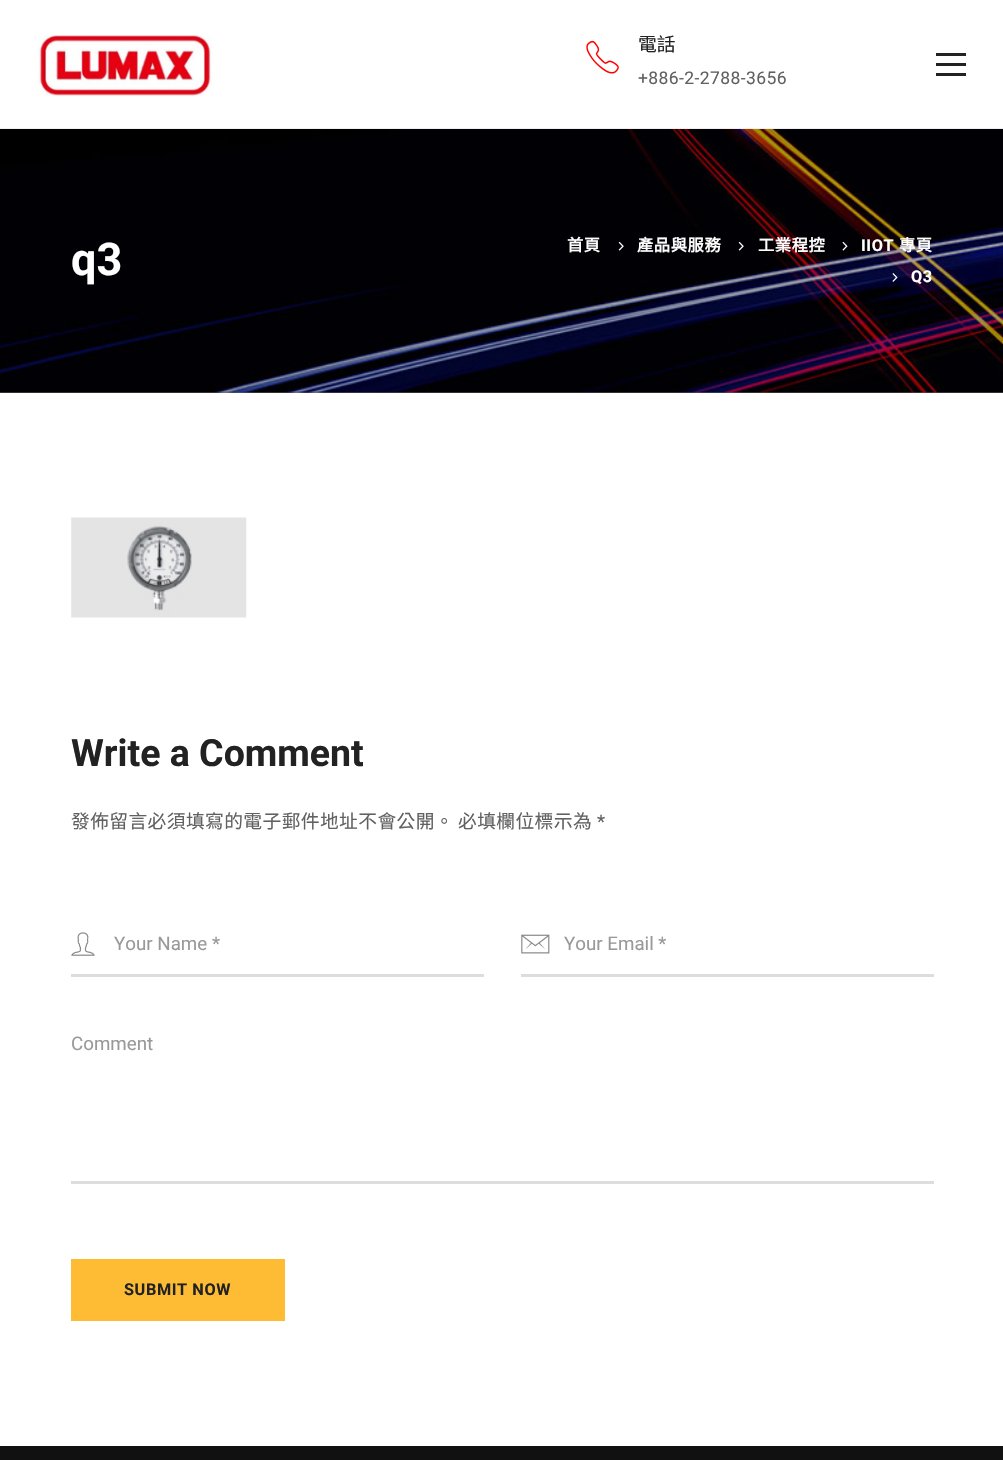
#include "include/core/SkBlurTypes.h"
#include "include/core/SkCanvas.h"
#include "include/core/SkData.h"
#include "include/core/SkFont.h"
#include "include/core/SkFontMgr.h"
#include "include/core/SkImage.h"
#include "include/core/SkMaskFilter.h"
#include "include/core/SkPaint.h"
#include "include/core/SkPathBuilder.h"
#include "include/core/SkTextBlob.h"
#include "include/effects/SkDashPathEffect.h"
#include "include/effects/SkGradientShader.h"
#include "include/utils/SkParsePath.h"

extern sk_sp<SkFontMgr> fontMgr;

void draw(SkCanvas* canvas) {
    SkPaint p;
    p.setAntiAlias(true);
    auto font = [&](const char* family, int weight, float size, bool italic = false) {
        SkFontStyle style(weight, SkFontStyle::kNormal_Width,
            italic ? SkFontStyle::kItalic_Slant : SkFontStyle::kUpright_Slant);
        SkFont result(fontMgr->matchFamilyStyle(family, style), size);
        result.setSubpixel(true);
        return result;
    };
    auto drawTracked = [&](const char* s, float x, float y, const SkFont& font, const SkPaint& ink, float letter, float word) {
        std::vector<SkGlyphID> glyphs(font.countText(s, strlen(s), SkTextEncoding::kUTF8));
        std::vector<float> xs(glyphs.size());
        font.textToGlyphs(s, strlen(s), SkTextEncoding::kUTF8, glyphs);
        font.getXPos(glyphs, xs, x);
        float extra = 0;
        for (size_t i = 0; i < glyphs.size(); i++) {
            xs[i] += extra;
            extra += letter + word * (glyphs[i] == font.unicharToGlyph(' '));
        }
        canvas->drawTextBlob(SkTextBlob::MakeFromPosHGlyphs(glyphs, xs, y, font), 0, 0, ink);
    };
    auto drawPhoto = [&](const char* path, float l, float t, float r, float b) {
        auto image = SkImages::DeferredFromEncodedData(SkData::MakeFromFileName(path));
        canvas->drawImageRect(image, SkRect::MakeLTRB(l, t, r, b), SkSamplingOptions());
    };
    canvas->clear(0xFFFFFFFF);
    p.setColor(0xFFEEEEEE);
    canvas->drawRect(SkRect::MakeLTRB(0, 128, 1003, 129), p);
    drawPhoto("media/1.png", 37, 35, 213, 96);
    drawPhoto("media/2.png", 586, 40, 619, 74);
    auto font1 = font("Noto Sans CJK TC", 400, 18.75f);
    p.setColor(0xFF222222);
    canvas->drawString("電話", 638, 51, font1, p);
    auto font2 = font("Roboto", 400, 17.5f);
    p.setColor(0xFF616161);
    drawTracked("+886-2-2788-3656", 638, 84, font2, p, 0.4f, 0);
    {
        const struct { float l, t, r, b; SkColor color; } items[] = {
            {936, 63, 966, 66, 0xFF222222},
            {936, 53, 966, 56, 0xFF222222},
            {936, 73, 966, 76, 0xFF222222},
            {0, 392, 1003, 393, 0xFF626262},
        };
        for (auto [l, t, r, b, color] : items) {
            p.setColor(color);
            canvas->drawRect(SkRect::MakeLTRB(l, t, r, b), p);
        }
    }
    drawPhoto("media/3.png", 0, 129, 1003, 393);
    auto font3 = font("Roboto", 700, 45);
    p.setColor(0xFFFFFFFF);
    canvas->drawString("q3", 71, 275, font3, p);
    auto font4 = font("Noto Sans CJK TC", 700, 16.25f);
    drawTracked("首頁", 567, 251, font4, p, 0.6f, 0);
    drawPhoto("media/4.png", 618, 241, 624, 251);
    drawTracked("產品與服務", 637, 251, font4, p, 0.6f, 0);
    drawPhoto("media/4.png", 738, 241, 744, 251);
    drawTracked("工業程控", 758, 251, font4, p, 0.6f, 0);
    drawPhoto("media/5.png", 842, 241, 848, 251);
    auto font5 = font("Roboto", 700, 16.25f);
    drawTracked("IIOT", 861, 251, font5, p, 0.6f, 0);
    drawTracked("專頁", 899, 251, font4, p, 0.6f, 0);
    drawPhoto("media/6.png", 892, 273, 898, 282);
    drawTracked("Q3", 911, 282, font5, p, 0.6f, 0);
    drawPhoto("media/7.png", 71, 517, 247, 618);
    auto font6 = font("Roboto", 700, 37.5f);
    p.setColor(0xFF222222);
    canvas->drawString("Write a Comment", 71, 766, font6, p);
    p.setColor(0xFF616161);
    drawTracked("發佈留言必須填寫的電子郵件地址不會公開。", 71, 828, font1, p, 0.4f, 0);
    drawTracked("必填欄位標示為", 458, 828, font1, p, 0.4f, 0);
    auto font7 = font("Roboto", 400, 18.75f);
    drawTracked("*", 597, 828, font7, p, 0.4f, 0);
    drawPhoto("media/8.png", 71, 932, 95, 956);
    p.setColor(0xFFDDDDDD);
    canvas->drawRect(SkRect::MakeLTRB(71, 974, 484, 977), p);
    p.setColor(0xFF999999);
    canvas->drawString("Your Name *", 114, 950, font7, p);
    drawPhoto("media/9.png", 521, 934, 550, 954);
    p.setColor(0xFFDDDDDD);
    canvas->drawRect(SkRect::MakeLTRB(521, 974, 934, 977), p);
    p.setColor(0xFF999999);
    canvas->drawString("Your Email *", 564, 950, font7, p);
    p.setColor(0xFFDDDDDD);
    canvas->drawRect(SkRect::MakeLTRB(71, 1181, 934, 1184), p);
    p.setColor(0xFF999999);
    canvas->drawString("Comment", 71, 1050, font7, p);
    p.setColor(0xFFFEBC35);
    canvas->drawRect(SkRect::MakeLTRB(71, 1259, 285, 1321), p);
    p.setColor(0xFF222222);
    drawTracked("SUBMIT NOW", 124, 1295, font5, p, 0.6f, 0);
    p.setColor(0xFF111111);
    canvas->drawRect(SkRect::MakeLTRB(0, 1446, 1003, 1460), p);
}
